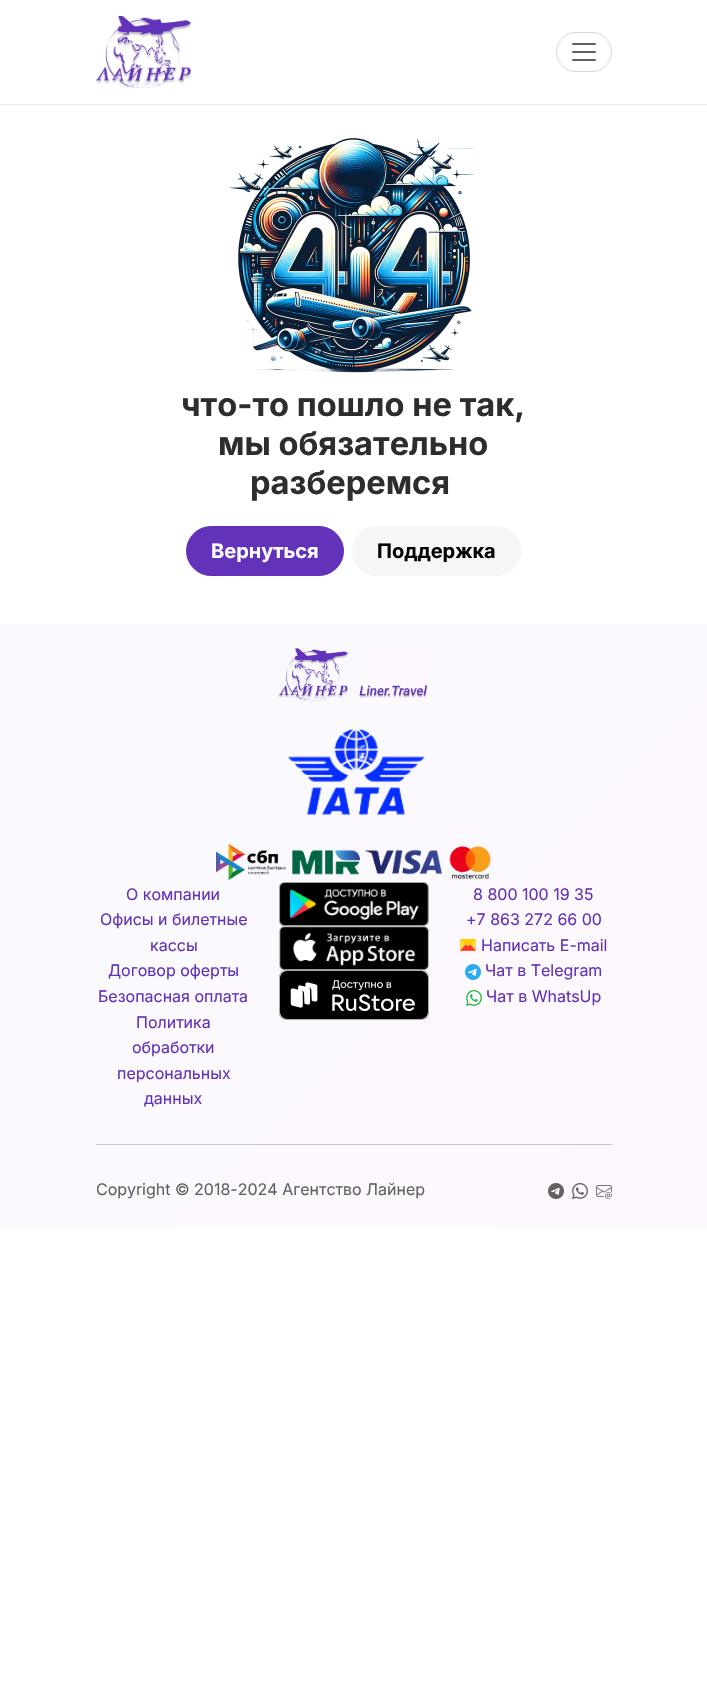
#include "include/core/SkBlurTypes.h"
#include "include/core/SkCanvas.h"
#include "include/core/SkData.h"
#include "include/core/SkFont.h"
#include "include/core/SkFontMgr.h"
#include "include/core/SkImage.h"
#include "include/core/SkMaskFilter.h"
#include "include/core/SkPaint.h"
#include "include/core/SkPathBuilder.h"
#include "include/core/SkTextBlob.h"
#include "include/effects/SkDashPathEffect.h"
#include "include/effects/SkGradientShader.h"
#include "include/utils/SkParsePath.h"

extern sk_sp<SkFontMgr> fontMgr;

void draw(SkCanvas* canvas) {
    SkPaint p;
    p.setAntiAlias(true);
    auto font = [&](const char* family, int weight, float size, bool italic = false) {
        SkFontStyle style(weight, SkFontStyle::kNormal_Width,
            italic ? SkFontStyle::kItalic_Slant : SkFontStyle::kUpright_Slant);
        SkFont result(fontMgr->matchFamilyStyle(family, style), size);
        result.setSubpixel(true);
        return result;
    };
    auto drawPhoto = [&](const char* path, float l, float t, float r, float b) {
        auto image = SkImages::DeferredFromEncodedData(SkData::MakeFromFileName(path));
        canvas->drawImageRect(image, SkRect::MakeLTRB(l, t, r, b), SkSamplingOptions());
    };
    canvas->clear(0xFFFFFFFF);
    p.setColor(0xFFEAEAEA);
    canvas->drawRect(SkRect::MakeLTRB(0, 104, 707, 105), p);
    drawPhoto("media/1.png", 96, 16, 191, 88);
    p.setStyle(SkPaint::kStroke_Style);
    p.setStrokeWidth(1);
    p.setColor(0xFFD9D9D9);
    canvas->drawRoundRect(SkRect::MakeLTRB(556.5f, 32.5f, 611.5f, 71.5f), 19.5f, 19.5f, p);
    drawPhoto("media/2.png", 572, 43, 596, 61);
    drawPhoto("media/3.png", 230, 138, 474, 373);
    auto font1 = font("Inter", 700, 32.6f);
    p.setStyle(SkPaint::kFill_Style);
    p.setColor(0xFF2D2D2D);
    {
        const struct { const char* s; float x, y; } items[] = {
            {"что-то пошло не так,", 181, 416},
            {"мы обязательно", 218, 455},
            {"разберемся", 250, 494},
        };
        for (auto [s, x, y] : items) {
            canvas->drawString(s, x, y, font1, p);
        }
    }
    p.setColor(0xFF6232BB);
    canvas->drawRoundRect(SkRect::MakeLTRB(186.5f, 526.5f, 343.5f, 575.5f), 24.5f, 24.5f, p);
    p.setStyle(SkPaint::kStroke_Style);
    canvas->drawRoundRect(SkRect::MakeLTRB(186.5f, 526.5f, 343.5f, 575.5f), 24.5f, 24.5f, p);
    auto font2 = font("Inter", 700, 20);
    p.setStyle(SkPaint::kFill_Style);
    p.setColor(0xFFFFFFFF);
    canvas->drawString("Вернуться", 211, 558, font2, p);
    p.setColor(0xFFF5F6F8);
    canvas->drawRoundRect(SkRect::MakeLTRB(352.5f, 526.5f, 520.5f, 575.5f), 24.5f, 24.5f, p);
    p.setStyle(SkPaint::kStroke_Style);
    canvas->drawRoundRect(SkRect::MakeLTRB(352.5f, 526.5f, 520.5f, 575.5f), 24.5f, 24.5f, p);
    p.setStyle(SkPaint::kFill_Style);
    p.setColor(0xFF000000);
    canvas->drawString("Поддержка", 377, 558, font2, p);
    {
        const SkColor colors[] = {0xFFF8FAFF, 0xFFFEF7FD};
        const float stops[] = {0, 1};
        const SkPoint ends[] = {{26, 598}, {681, 1253}};
        p.setShader(SkGradientShader::MakeLinear(ends, colors, stops, 2, SkTileMode::kClamp));
        p.setAlpha(255);
    }
    canvas->drawRect(SkRect::MakeLTRB(0, 624, 707, 1227), p);
    drawPhoto("media/4.png", 279, 648, 429, 701);
    drawPhoto("media/5.png", 287, 728, 425, 815);
    drawPhoto("media/6.png", 216, 843, 491, 881);
    auto font3 = font("Inter", 400, 16);
    p.setShader(nullptr);
    p.setColor(0xFF6232BB);
    {
        const struct { const char* s; float x, y; } items[] = {
            {"О компании", 126, 900},
            {"Офисы и билетные", 100, 925},
            {"кассы", 150, 951},
            {"Договор оферты", 108, 976},
            {"Безопасная оплата", 98, 1002},
            {"Политика", 136, 1028},
            {"обработки", 132, 1053},
            {"персональных", 117, 1079},
            {"данных", 144, 1104},
        };
        for (auto [s, x, y] : items) {
            canvas->drawString(s, x, y, font3, p);
        }
    }
    drawPhoto("media/7.png", 279, 882, 429, 926);
    drawPhoto("media/8.png", 279, 926, 429, 970);
    drawPhoto("media/9.png", 279, 970, 429, 1020);
    canvas->drawString("8 800 100 19 35", 473, 900, font3, p);
    canvas->drawString("+7 863 272 66 00", 466, 925, font3, p);
    drawPhoto("media/10.png", 460, 939, 476, 951);
    canvas->drawString("Написать E-mail", 481, 951, font3, p);
    drawPhoto("media/11.png", 465, 964, 481, 980);
    canvas->drawString("Чат в Telegram", 485, 976, font3, p);
    drawPhoto("media/12.png", 466, 990, 482, 1006);
    canvas->drawString("Чат в WhatsUp", 486, 1002, font3, p);
    p.setColor(0xFFC8C5CA);
    canvas->drawRect(SkRect::MakeLTRB(96, 1144, 612, 1145), p);
    p.setColor(0xFF616061);
    canvas->drawString("Copyright © 2018-2024 Агентство Лайнер", 96, 1195, font3, p);
    drawPhoto("media/13.png", 548, 1183, 564, 1199);
    drawPhoto("media/14.png", 572, 1183, 588, 1199);
    drawPhoto("media/15.png", 596, 1185, 612, 1199);
}
